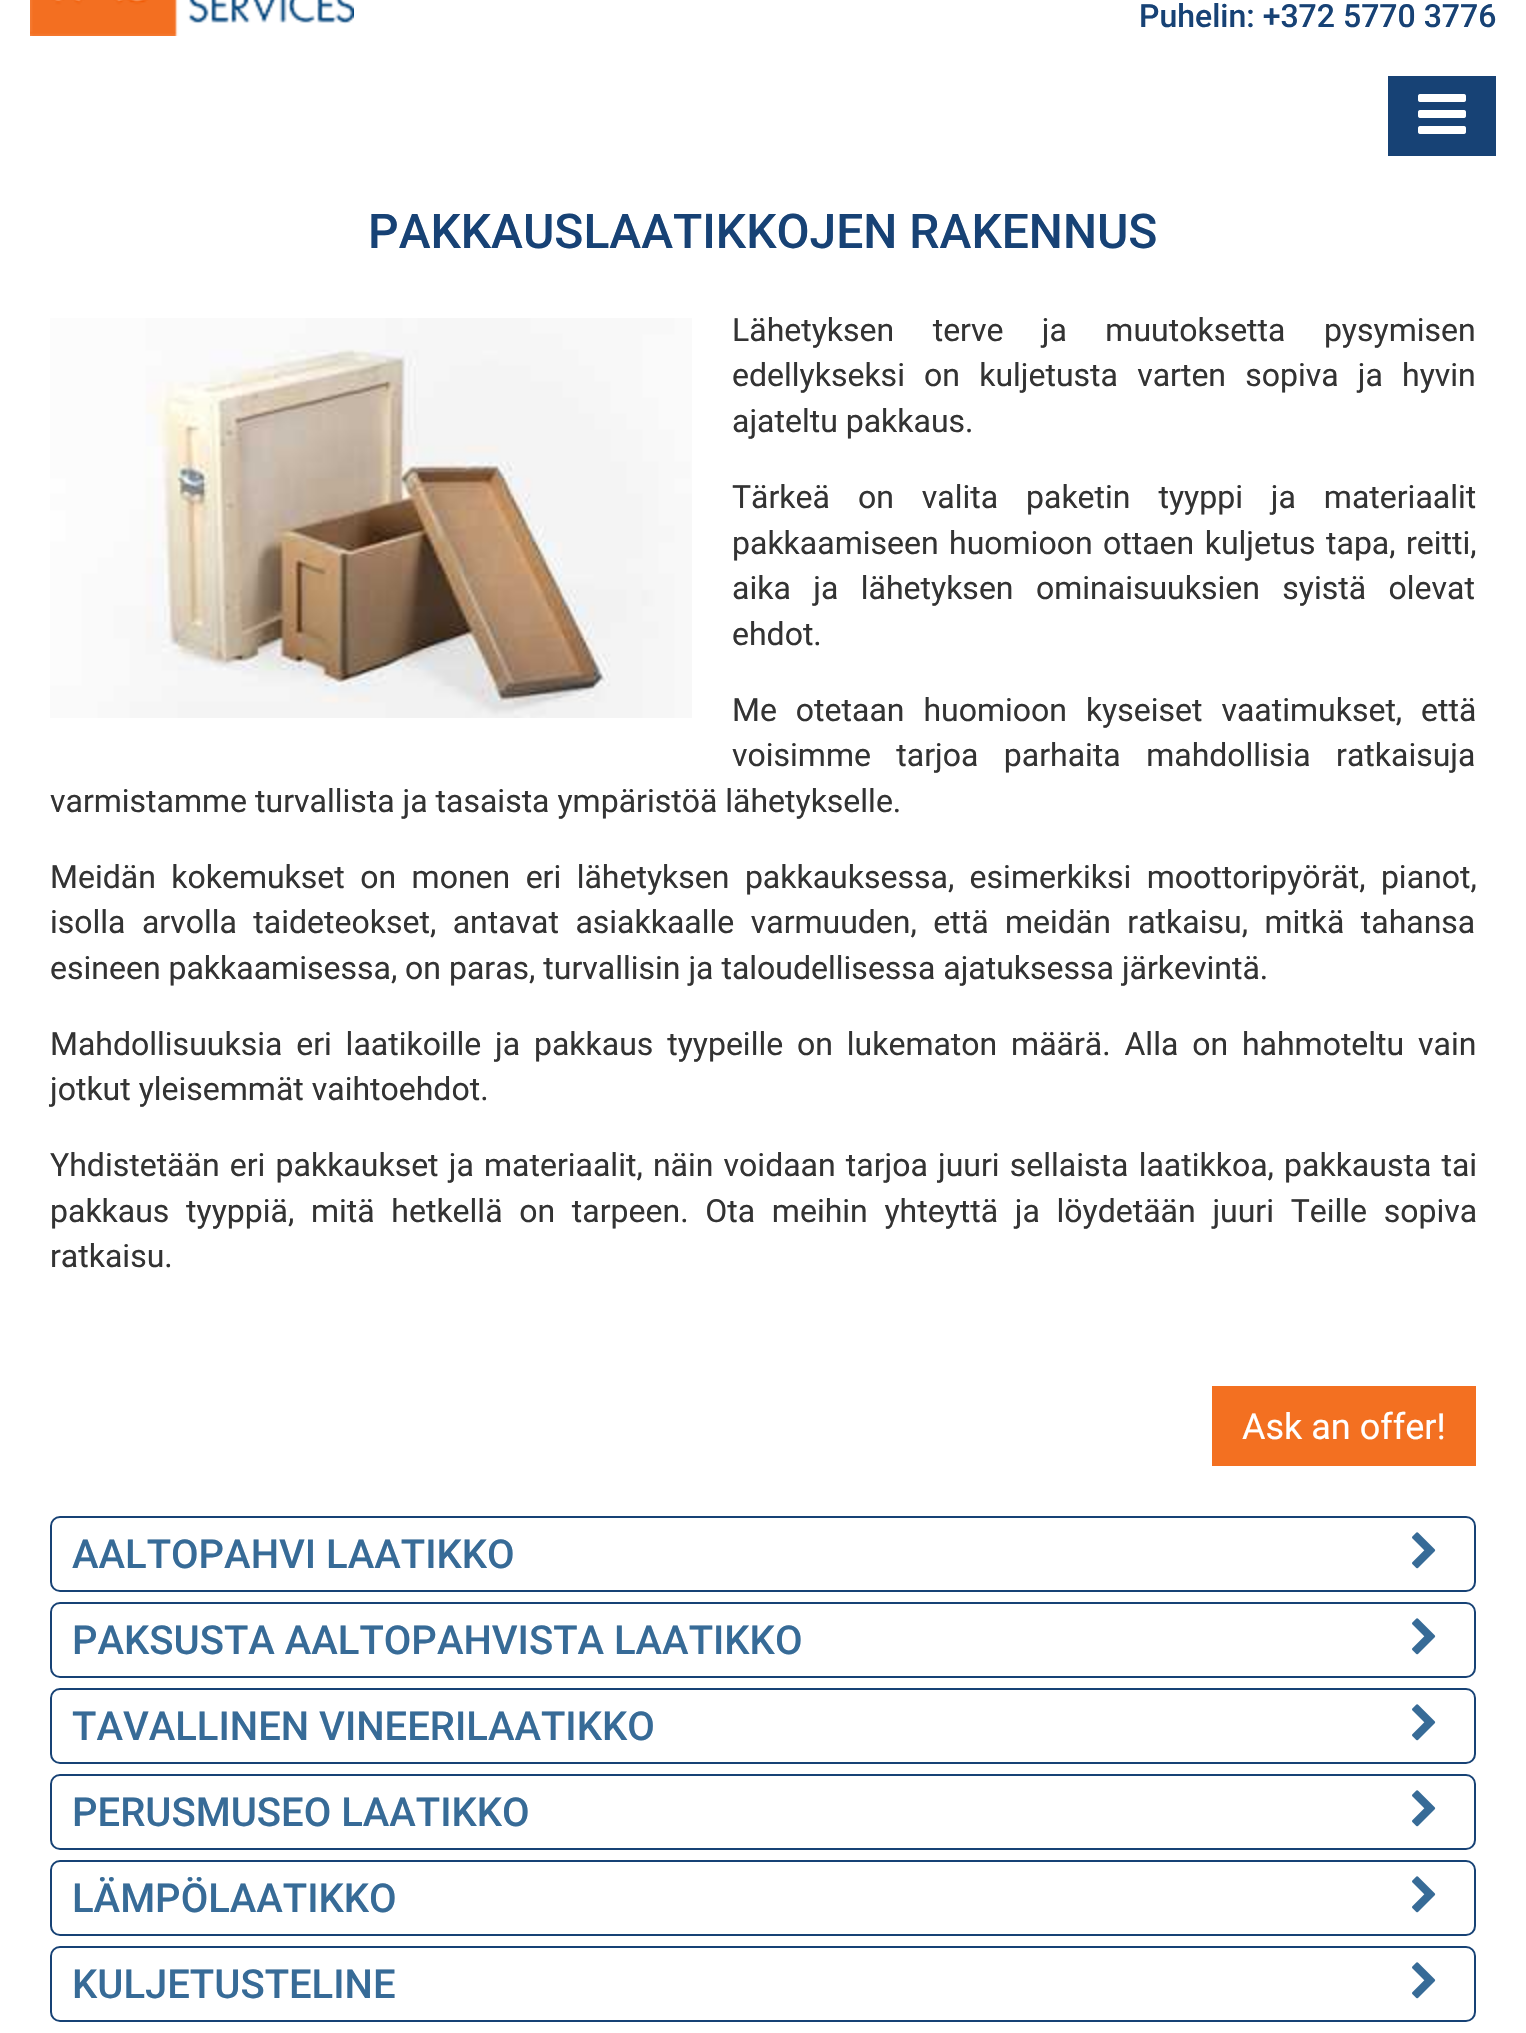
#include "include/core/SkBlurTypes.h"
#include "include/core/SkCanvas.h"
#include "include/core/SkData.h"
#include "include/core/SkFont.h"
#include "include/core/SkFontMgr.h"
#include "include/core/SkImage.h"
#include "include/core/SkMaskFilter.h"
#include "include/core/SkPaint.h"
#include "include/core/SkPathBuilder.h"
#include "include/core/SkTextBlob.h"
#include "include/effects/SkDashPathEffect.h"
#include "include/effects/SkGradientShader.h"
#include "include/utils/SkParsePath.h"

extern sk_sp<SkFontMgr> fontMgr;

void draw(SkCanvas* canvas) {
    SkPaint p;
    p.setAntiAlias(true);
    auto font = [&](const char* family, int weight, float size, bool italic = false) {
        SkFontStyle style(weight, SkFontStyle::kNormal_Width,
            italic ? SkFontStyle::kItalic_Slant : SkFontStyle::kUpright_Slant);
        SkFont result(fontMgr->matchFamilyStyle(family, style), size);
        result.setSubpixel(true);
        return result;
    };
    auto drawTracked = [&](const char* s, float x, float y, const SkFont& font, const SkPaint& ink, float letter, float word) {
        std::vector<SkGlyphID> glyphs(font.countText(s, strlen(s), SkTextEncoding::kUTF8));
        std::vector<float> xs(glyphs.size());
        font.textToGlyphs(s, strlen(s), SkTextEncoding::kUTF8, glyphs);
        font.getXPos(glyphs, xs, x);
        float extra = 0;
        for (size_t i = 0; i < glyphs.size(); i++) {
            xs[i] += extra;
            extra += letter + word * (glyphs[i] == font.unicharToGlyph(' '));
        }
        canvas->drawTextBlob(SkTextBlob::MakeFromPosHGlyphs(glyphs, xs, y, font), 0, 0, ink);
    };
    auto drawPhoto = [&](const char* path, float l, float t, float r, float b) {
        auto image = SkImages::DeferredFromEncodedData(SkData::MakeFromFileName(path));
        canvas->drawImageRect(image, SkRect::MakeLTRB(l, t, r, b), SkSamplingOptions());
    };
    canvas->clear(0xFFFFFFFF);
    drawPhoto("media/1.png", 30, 0, 354, 36);
    auto font1 = font("Roboto", 500, 32);
    p.setColor(0xFF174275);
    canvas->drawString("Puhelin: +372 5770 3776", 1139, 27, font1, p);
    canvas->drawRect(SkRect::MakeLTRB(1388, 76, 1496, 156), p);
    drawPhoto("media/2.png", 1418, 94, 1466, 134);
    auto font2 = font("Roboto", 500, 48);
    canvas->drawString("PAKKAUSLAATIKKOJEN RAKENNUS", 368, 248, font2, p);
    drawPhoto("media/3.png", 50, 318, 692, 718);
    auto font3 = font("Roboto", 400, 32);
    p.setColor(0xFF333333);
    drawTracked("Lähetyksen terve ja muutoksetta pysymisen", 732, 341, font3, p, 0, 30.5f);
    drawTracked("edellykseksi on kuljetusta varten sopiva ja hyvin", 732, 386, font3, p, 0, 11.25f);
    canvas->drawString("ajateltu pakkaus.", 732, 432, font3, p);
    drawTracked("Tärkeä on valita paketin tyyppi ja materiaalit", 732, 508, font3, p, 0, 20);
    drawTracked("pakkaamiseen huomioon ottaen kuljetus tapa, reitti,", 732, 554, font3, p, 0, 2.5f);
    drawTracked("aika ja lähetyksen ominaisuuksien syistä olevat", 732, 599, font3, p, 0, 14.5f);
    canvas->drawString("ehdot.", 732, 645, font3, p);
    drawTracked("Me otetaan huomioon kyseiset vaatimukset, että", 732, 721, font3, p, 0, 11);
    drawTracked("voisimme tarjoa parhaita mahdollisia ratkaisuja", 732, 766, font3, p, 0, 17.5f);
    canvas->drawString("varmistamme turvallista ja tasaista ympäristöä lähetykselle.", 50, 812, font3, p);
    drawTracked("Meidän kokemukset on monen eri lähetyksen pakkauksessa, esimerkiksi moottoripyörät, pianot,", 50, 888, font3, p, 0, 7.5f);
    drawTracked("isolla arvolla taideteokset, antavat asiakkaalle varmuuden, että meidän ratkaisu, mitkä tahansa", 50, 933, font3, p, 0, 8.5f);
    canvas->drawString("esineen pakkaamisessa, on paras, turvallisin ja taloudellisessa ajatuksessa järkevintä.", 50, 979, font3, p);
    drawTracked("Mahdollisuuksia eri laatikoille ja pakkaus tyypeille on lukematon määrä. Alla on hahmoteltu vain", 50, 1055, font3, p, 0, 5.9f);
    canvas->drawString("jotkut yleisemmät vaihtoehdot.", 50, 1100, font3, p);
    drawTracked("Yhdistetään eri pakkaukset ja materiaalit, näin voidaan tarjoa juuri sellaista laatikkoa, pakkausta tai", 50, 1176, font3, p, 0, 2.25f);
    drawTracked("pakkaus tyyppiä, mitä hetkellä on tarpeen. Ota meihin yhteyttä ja löydetään juuri Teille sopiva", 50, 1222, font3, p, 0, 8.75f);
    canvas->drawString("ratkaisu.", 50, 1267, font3, p);
    p.setColor(0xFFF37021);
    canvas->drawRect(SkRect::MakeLTRB(1212, 1386, 1476, 1466), p);
    auto font4 = font("Roboto", 400, 36);
    p.setColor(0xFFFFFFFF);
    canvas->drawString("Ask an offer!", 1242, 1439, font4, p);
    p.setStyle(SkPaint::kStroke_Style);
    p.setStrokeWidth(2);
    p.setColor(0xFF174275);
    canvas->drawRoundRect(SkRect::MakeLTRB(51, 1517, 1475, 1591), 9, 9, p);
    auto font5 = font("Roboto", 500, 40);
    p.setStyle(SkPaint::kFill_Style);
    p.setColor(0xFF376B97);
    canvas->drawString("AALTOPAHVI LAATIKKO", 72, 1568, font5, p);
    drawPhoto("media/4.png", 1412, 1532, 1436, 1569);
    p.setStyle(SkPaint::kStroke_Style);
    p.setColor(0xFF174275);
    canvas->drawRoundRect(SkRect::MakeLTRB(51, 1603, 1475, 1677), 9, 9, p);
    p.setStyle(SkPaint::kFill_Style);
    p.setColor(0xFF376B97);
    canvas->drawString("PAKSUSTA AALTOPAHVISTA LAATIKKO", 72, 1654, font5, p);
    drawPhoto("media/4.png", 1412, 1618, 1436, 1655);
    p.setStyle(SkPaint::kStroke_Style);
    p.setColor(0xFF174275);
    canvas->drawRoundRect(SkRect::MakeLTRB(51, 1689, 1475, 1763), 9, 9, p);
    p.setStyle(SkPaint::kFill_Style);
    p.setColor(0xFF376B97);
    canvas->drawString("TAVALLINEN VINEERILAATIKKO", 72, 1740, font5, p);
    drawPhoto("media/4.png", 1412, 1704, 1436, 1741);
    p.setStyle(SkPaint::kStroke_Style);
    p.setColor(0xFF174275);
    canvas->drawRoundRect(SkRect::MakeLTRB(51, 1775, 1475, 1849), 9, 9, p);
    p.setStyle(SkPaint::kFill_Style);
    p.setColor(0xFF376B97);
    canvas->drawString("PERUSMUSEO LAATIKKO", 72, 1826, font5, p);
    drawPhoto("media/4.png", 1412, 1790, 1436, 1827);
    p.setStyle(SkPaint::kStroke_Style);
    p.setColor(0xFF174275);
    canvas->drawRoundRect(SkRect::MakeLTRB(51, 1861, 1475, 1935), 9, 9, p);
    p.setStyle(SkPaint::kFill_Style);
    p.setColor(0xFF376B97);
    canvas->drawString("LÄMPÖLAATIKKO", 72, 1912, font5, p);
    drawPhoto("media/4.png", 1412, 1876, 1436, 1913);
    p.setStyle(SkPaint::kStroke_Style);
    p.setColor(0xFF174275);
    canvas->drawRoundRect(SkRect::MakeLTRB(51, 1947, 1475, 2021), 9, 9, p);
    p.setStyle(SkPaint::kFill_Style);
    p.setColor(0xFF376B97);
    canvas->drawString("KULJETUSTELINE", 72, 1998, font5, p);
    drawPhoto("media/4.png", 1412, 1962, 1436, 1999);
}
